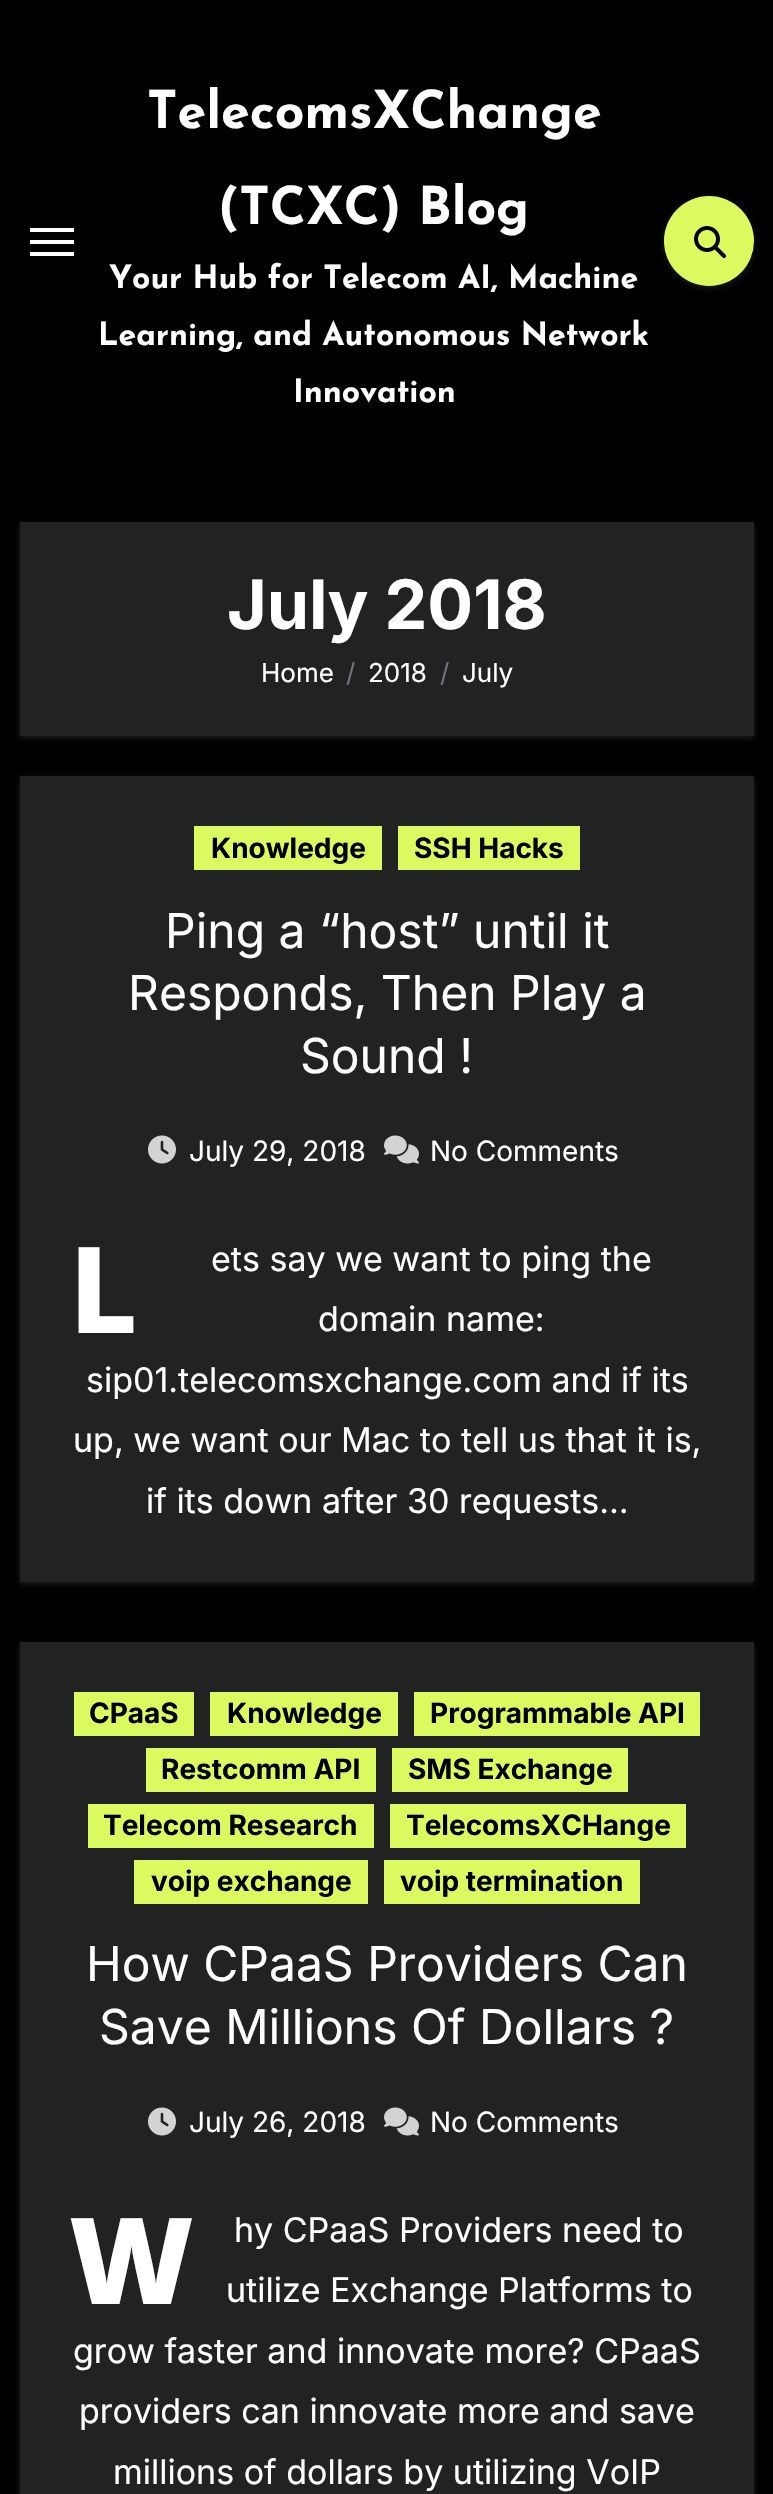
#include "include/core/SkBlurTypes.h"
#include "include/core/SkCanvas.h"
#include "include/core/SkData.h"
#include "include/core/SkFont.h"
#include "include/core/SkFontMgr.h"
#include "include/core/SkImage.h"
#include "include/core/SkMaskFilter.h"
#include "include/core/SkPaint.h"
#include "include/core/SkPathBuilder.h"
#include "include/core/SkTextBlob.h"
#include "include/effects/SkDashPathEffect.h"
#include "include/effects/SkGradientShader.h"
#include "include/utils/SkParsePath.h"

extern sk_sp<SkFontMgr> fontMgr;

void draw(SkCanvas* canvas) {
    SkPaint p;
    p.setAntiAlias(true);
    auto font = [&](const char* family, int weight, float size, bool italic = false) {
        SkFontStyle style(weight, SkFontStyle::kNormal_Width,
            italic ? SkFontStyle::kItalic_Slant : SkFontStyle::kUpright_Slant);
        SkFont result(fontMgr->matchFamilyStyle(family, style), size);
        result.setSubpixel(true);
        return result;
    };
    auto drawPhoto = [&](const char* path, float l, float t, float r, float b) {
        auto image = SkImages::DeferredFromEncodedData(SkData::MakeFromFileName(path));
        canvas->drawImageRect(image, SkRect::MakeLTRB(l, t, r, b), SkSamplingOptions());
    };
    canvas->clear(0xFF000000);
    {
        const struct { float l, t, r, b; SkColor color; } items[] = {
            {30, 228, 74, 232, 0xFFFFFFFF},
            {30, 240, 74, 244, 0xFFFFFFFF},
            {30, 252, 74, 256, 0xFFFFFFFF},
        };
        for (auto [l, t, r, b, color] : items) {
            p.setColor(color);
            canvas->drawRect(SkRect::MakeLTRB(l, t, r, b), p);
        }
    }
    auto font1 = font("Josefin Sans", 700, 52);
    canvas->drawString("TelecomsXChange", 147, 128, font1, p);
    canvas->drawString("(TCXC) Blog", 218, 224, font1, p);
    auto font2 = font("Josefin Sans", 700, 32);
    {
        const struct { const char* s; float x, y; } items[] = {
            {"Your Hub for Telecom AI, Machine", 109, 288},
            {"Learning, and Autonomous Network", 98, 345},
            {"Innovation", 293, 402},
        };
        for (auto [s, x, y] : items) {
            canvas->drawString(s, x, y, font2, p);
        }
    }
    p.setColor(0x26B9B9B9);
    p.setMaskFilter(SkMaskFilter::MakeBlur(kNormal_SkBlurStyle, 3));
    canvas->drawRoundRect(SkRect::MakeLTRB(664, 198, 754, 288), 45, 45, p);
    p.setMaskFilter(nullptr);
    p.setColor(0xFFDBFA60);
    canvas->drawCircle(709, 241, 45, p);
    drawPhoto("media/1.png", 694, 226, 726, 258);
    p.setColor(0x26B9B9B9);
    p.setMaskFilter(SkMaskFilter::MakeBlur(kNormal_SkBlurStyle, 3));
    canvas->drawRect(SkRect::MakeLTRB(20, 524, 754, 738), p);
    p.setMaskFilter(nullptr);
    p.setColor(0xFF222222);
    canvas->drawRect(SkRect::MakeLTRB(20, 522, 754, 736), p);
    auto font3 = font("Inter", 700, 68);
    p.setColor(0xFFFFFFFF);
    canvas->drawString("July 2018", 227, 629, font3, p);
    auto font4 = font("Inter", 400, 26);
    canvas->drawString("Home", 261, 682, font4, p);
    p.setColor(0xFF6C757D);
    canvas->drawString("/", 346, 682, font4, p);
    p.setColor(0xFFFFFFFF);
    canvas->drawString("2018", 368, 682, font4, p);
    p.setColor(0xFF6C757D);
    canvas->drawString("/", 440, 682, font4, p);
    p.setColor(0xFFFFFFFF);
    canvas->drawString("July", 462, 682, font4, p);
    p.setColor(0x26B9B9B9);
    p.setMaskFilter(SkMaskFilter::MakeBlur(kNormal_SkBlurStyle, 3));
    canvas->drawRect(SkRect::MakeLTRB(20, 778, 754, 1584), p);
    p.setMaskFilter(nullptr);
    p.setColor(0xFF222222);
    canvas->drawRect(SkRect::MakeLTRB(20, 776, 754, 1582), p);
    p.setColor(0xFFDBFA60);
    canvas->drawRect(SkRect::MakeLTRB(194, 826, 382, 870), p);
    auto font5 = font("Inter", 700, 28);
    p.setColor(0xFF000000);
    canvas->drawString("Knowledge", 211, 858, font5, p);
    p.setColor(0xFFDBFA60);
    canvas->drawRect(SkRect::MakeLTRB(398, 826, 580, 870), p);
    p.setColor(0xFF000000);
    canvas->drawString("SSH Hacks", 414, 858, font5, p);
    auto font6 = font("Inter", 400, 48);
    p.setColor(0xFFFFFFFF);
    {
        const struct { const char* s; float x, y; } items[] = {
            {"Ping a “host” until it", 165, 948},
            {"Responds, Then Play a", 128, 1010},
            {"Sound !", 300, 1073},
        };
        for (auto [s, x, y] : items) {
            canvas->drawString(s, x, y, font6, p);
        }
    }
    drawPhoto("media/2.png", 148, 1135, 176, 1164);
    auto font7 = font("Inter", 400, 28);
    canvas->drawString("July 29, 2018", 189, 1161, font7, p);
    drawPhoto("media/3.png", 384, 1135, 419, 1164);
    canvas->drawString("No Comments", 430, 1161, font7, p);
    auto font8 = font("Noto Sans", 800, 120);
    canvas->drawString("L", 69, 1333, font8, p);
    auto font9 = font("Inter", 400, 34);
    {
        const struct { const char* s; float x, y; } items[] = {
            {"ets say we want to ping the", 211, 1271},
            {"domain name:", 318, 1331},
            {"sip01.telecomsxchange.com and if its", 86, 1392},
            {"up, we want our Mac to tell us that it is,", 73, 1452},
            {"if its down after 30 requests…", 146, 1513},
        };
        for (auto [s, x, y] : items) {
            canvas->drawString(s, x, y, font9, p);
        }
    }
    p.setColor(0x26B9B9B9);
    p.setMaskFilter(SkMaskFilter::MakeBlur(kNormal_SkBlurStyle, 3));
    canvas->drawRect(SkRect::MakeLTRB(20, 1644, 754, 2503), p);
    p.setMaskFilter(nullptr);
    p.setColor(0xFF222222);
    canvas->drawRect(SkRect::MakeLTRB(20, 1642, 754, 2494), p);
    p.setColor(0xFFDBFA60);
    canvas->drawRect(SkRect::MakeLTRB(74, 1692, 194, 1736), p);
    p.setColor(0xFF000000);
    canvas->drawString("CPaaS", 89, 1723, font5, p);
    p.setColor(0xFFDBFA60);
    canvas->drawRect(SkRect::MakeLTRB(210, 1692, 398, 1736), p);
    p.setColor(0xFF000000);
    canvas->drawString("Knowledge", 227, 1723, font5, p);
    p.setColor(0xFFDBFA60);
    canvas->drawRect(SkRect::MakeLTRB(414, 1692, 700, 1736), p);
    p.setColor(0xFF000000);
    canvas->drawString("Programmable API", 430, 1723, font5, p);
    p.setColor(0xFFDBFA60);
    canvas->drawRect(SkRect::MakeLTRB(146, 1748, 376, 1792), p);
    p.setColor(0xFF000000);
    canvas->drawString("Restcomm API", 161, 1779, font5, p);
    p.setColor(0xFFDBFA60);
    canvas->drawRect(SkRect::MakeLTRB(392, 1748, 628, 1792), p);
    p.setColor(0xFF000000);
    canvas->drawString("SMS Exchange", 408, 1779, font5, p);
    p.setColor(0xFFDBFA60);
    canvas->drawRect(SkRect::MakeLTRB(88, 1804, 374, 1848), p);
    p.setColor(0xFF000000);
    canvas->drawString("Telecom Research", 103, 1835, font5, p);
    p.setColor(0xFFDBFA60);
    canvas->drawRect(SkRect::MakeLTRB(390, 1804, 686, 1848), p);
    p.setColor(0xFF000000);
    canvas->drawString("TelecomsXCHange", 406, 1835, font5, p);
    p.setColor(0xFFDBFA60);
    canvas->drawRect(SkRect::MakeLTRB(134, 1860, 368, 1904), p);
    p.setColor(0xFF000000);
    canvas->drawString("voip exchange", 151, 1891, font5, p);
    p.setColor(0xFFDBFA60);
    canvas->drawRect(SkRect::MakeLTRB(384, 1860, 640, 1904), p);
    p.setColor(0xFF000000);
    canvas->drawString("voip termination", 400, 1891, font5, p);
    p.setColor(0xFFFFFFFF);
    canvas->drawString("How CPaaS Providers Can", 86, 1981, font6, p);
    canvas->drawString("Save Millions Of Dollars ?", 99, 2044, font6, p);
    drawPhoto("media/2.png", 148, 2107, 176, 2136);
    canvas->drawString("July 26, 2018", 189, 2132, font7, p);
    drawPhoto("media/3.png", 384, 2107, 419, 2136);
    canvas->drawString("No Comments", 430, 2132, font7, p);
    auto font10 = font("Noto Sans", 900, 120);
    canvas->drawString("W", 69, 2304, font10, p);
    {
        const struct { const char* s; float x, y; } items[] = {
            {"hy CPaaS Providers need to", 234, 2242},
            {"utilize Exchange Platforms to", 226, 2302},
            {"grow faster and innovate more? CPaaS", 73, 2363},
            {"providers can innovate more and save", 79, 2423},
            {"millions of dollars by utilizing VoIP", 113, 2484},
        };
        for (auto [s, x, y] : items) {
            canvas->drawString(s, x, y, font9, p);
        }
    }
}
